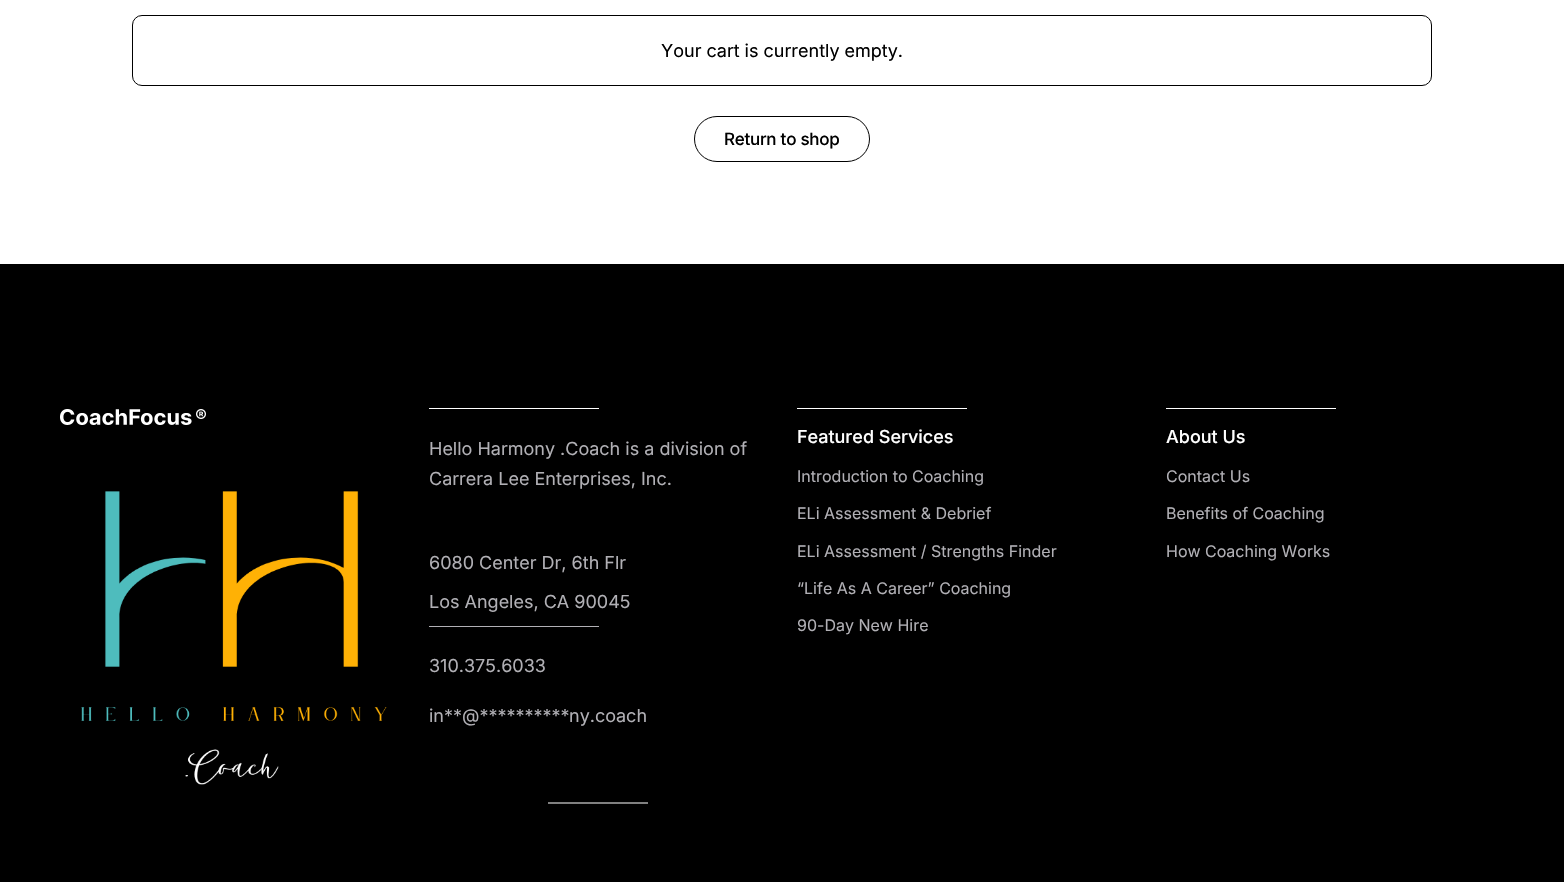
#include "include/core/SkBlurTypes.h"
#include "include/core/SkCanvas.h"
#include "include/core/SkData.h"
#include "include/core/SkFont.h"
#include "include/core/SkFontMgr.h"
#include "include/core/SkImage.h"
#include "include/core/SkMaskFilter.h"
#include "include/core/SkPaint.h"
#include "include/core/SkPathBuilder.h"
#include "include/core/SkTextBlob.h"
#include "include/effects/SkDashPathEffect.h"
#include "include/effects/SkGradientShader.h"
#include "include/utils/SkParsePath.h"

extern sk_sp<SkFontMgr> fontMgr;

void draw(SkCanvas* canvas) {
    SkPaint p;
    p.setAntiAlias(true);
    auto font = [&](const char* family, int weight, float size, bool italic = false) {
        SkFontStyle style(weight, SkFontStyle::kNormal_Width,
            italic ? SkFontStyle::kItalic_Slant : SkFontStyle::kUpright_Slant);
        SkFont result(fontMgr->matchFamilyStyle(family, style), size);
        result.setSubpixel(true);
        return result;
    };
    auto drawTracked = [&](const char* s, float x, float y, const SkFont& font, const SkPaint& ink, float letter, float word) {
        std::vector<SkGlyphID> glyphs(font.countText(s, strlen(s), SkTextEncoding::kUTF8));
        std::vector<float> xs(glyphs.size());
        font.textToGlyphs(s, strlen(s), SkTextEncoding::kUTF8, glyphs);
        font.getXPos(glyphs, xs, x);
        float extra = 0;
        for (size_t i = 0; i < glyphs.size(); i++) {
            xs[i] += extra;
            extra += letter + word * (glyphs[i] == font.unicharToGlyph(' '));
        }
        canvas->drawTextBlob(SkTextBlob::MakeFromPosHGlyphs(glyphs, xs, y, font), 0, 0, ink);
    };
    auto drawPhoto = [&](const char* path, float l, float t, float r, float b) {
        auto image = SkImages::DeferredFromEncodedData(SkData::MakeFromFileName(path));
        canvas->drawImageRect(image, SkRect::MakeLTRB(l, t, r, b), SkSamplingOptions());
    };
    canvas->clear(0xFFFFFFFF);
    p.setStyle(SkPaint::kStroke_Style);
    p.setStrokeWidth(1);
    p.setColor(0xFF000000);
    canvas->drawRoundRect(SkRect::MakeLTRB(132.5f, 15.5f, 1431.5f, 85.5f), 9.5f, 9.5f, p);
    auto font1 = font("Inter", 400, 18);
    p.setStyle(SkPaint::kFill_Style);
    canvas->drawString("Your cart is currently empty.", 661, 57, font1, p);
    p.setStyle(SkPaint::kStroke_Style);
    canvas->drawRoundRect(SkRect::MakeLTRB(694.5f, 116.5f, 869.5f, 161.5f), 22.5f, 22.5f, p);
    auto font2 = font("Inter", 500, 17);
    p.setStyle(SkPaint::kFill_Style);
    drawTracked("Return to shop", 724, 145, font2, p, -0.25f, 0);
    canvas->drawRect(SkRect::MakeLTRB(0, 264, 1564, 882), p);
    drawPhoto("media/1.png", 60, 409, 206, 425);
    drawPhoto("media/2.png", 81, 491, 387, 785);
    p.setColor(0xFFFFFFFF);
    canvas->drawRect(SkRect::MakeLTRB(429, 408, 599, 409), p);
    p.setColor(0xFFB1B0B5);
    {
        const struct { const char* s; float x, y; } items[] = {
            {"Hello Harmony .Coach is a division of", 429, 455},
            {"Carrera Lee Enterprises, Inc.", 429, 485},
            {"6080 Center Dr, 6th Flr", 429, 569},
            {"Los Angeles, CA 90045", 429, 608},
        };
        for (auto [s, x, y] : items) {
            canvas->drawString(s, x, y, font1, p);
        }
    }
    canvas->drawRect(SkRect::MakeLTRB(429, 626, 599, 627), p);
    {
        const struct { const char* s; float x, y; } items[] = {
            {"310.375.6033", 429, 672},
            {"in**", 429, 722},
            {"@**********", 462, 722},
            {"ny.coach", 569, 722},
        };
        for (auto [s, x, y] : items) {
            canvas->drawString(s, x, y, font1, p);
        }
    }
    p.setColor(0xFF808080);
    canvas->drawRect(SkRect::MakeLTRB(548, 802, 648, 804), p);
    p.setColor(0xFFFFFFFF);
    canvas->drawRect(SkRect::MakeLTRB(797, 408, 967, 409), p);
    auto font3 = font("Inter", 500, 18);
    canvas->drawString("Featured Services", 797, 443, font3, p);
    auto font4 = font("Inter", 400, 16);
    p.setColor(0xFFB1B0B5);
    {
        const struct { const char* s; float x, y; } items[] = {
            {"Introduction to Coaching", 797, 482},
            {"ELi Assessment & Debrief", 797, 519},
            {"ELi Assessment / Strengths Finder", 797, 557},
            {"“Life As A Career” Coaching", 797, 594},
            {"90-Day New Hire", 797, 631},
        };
        for (auto [s, x, y] : items) {
            canvas->drawString(s, x, y, font4, p);
        }
    }
    p.setColor(0xFFFFFFFF);
    canvas->drawRect(SkRect::MakeLTRB(1166, 408, 1336, 409), p);
    canvas->drawString("About Us", 1166, 443, font3, p);
    p.setColor(0xFFB1B0B5);
    {
        const struct { const char* s; float x, y; } items[] = {
            {"Contact Us", 1166, 482},
            {"Benefits of Coaching", 1166, 519},
            {"How Coaching Works", 1166, 557},
        };
        for (auto [s, x, y] : items) {
            canvas->drawString(s, x, y, font4, p);
        }
    }
}
